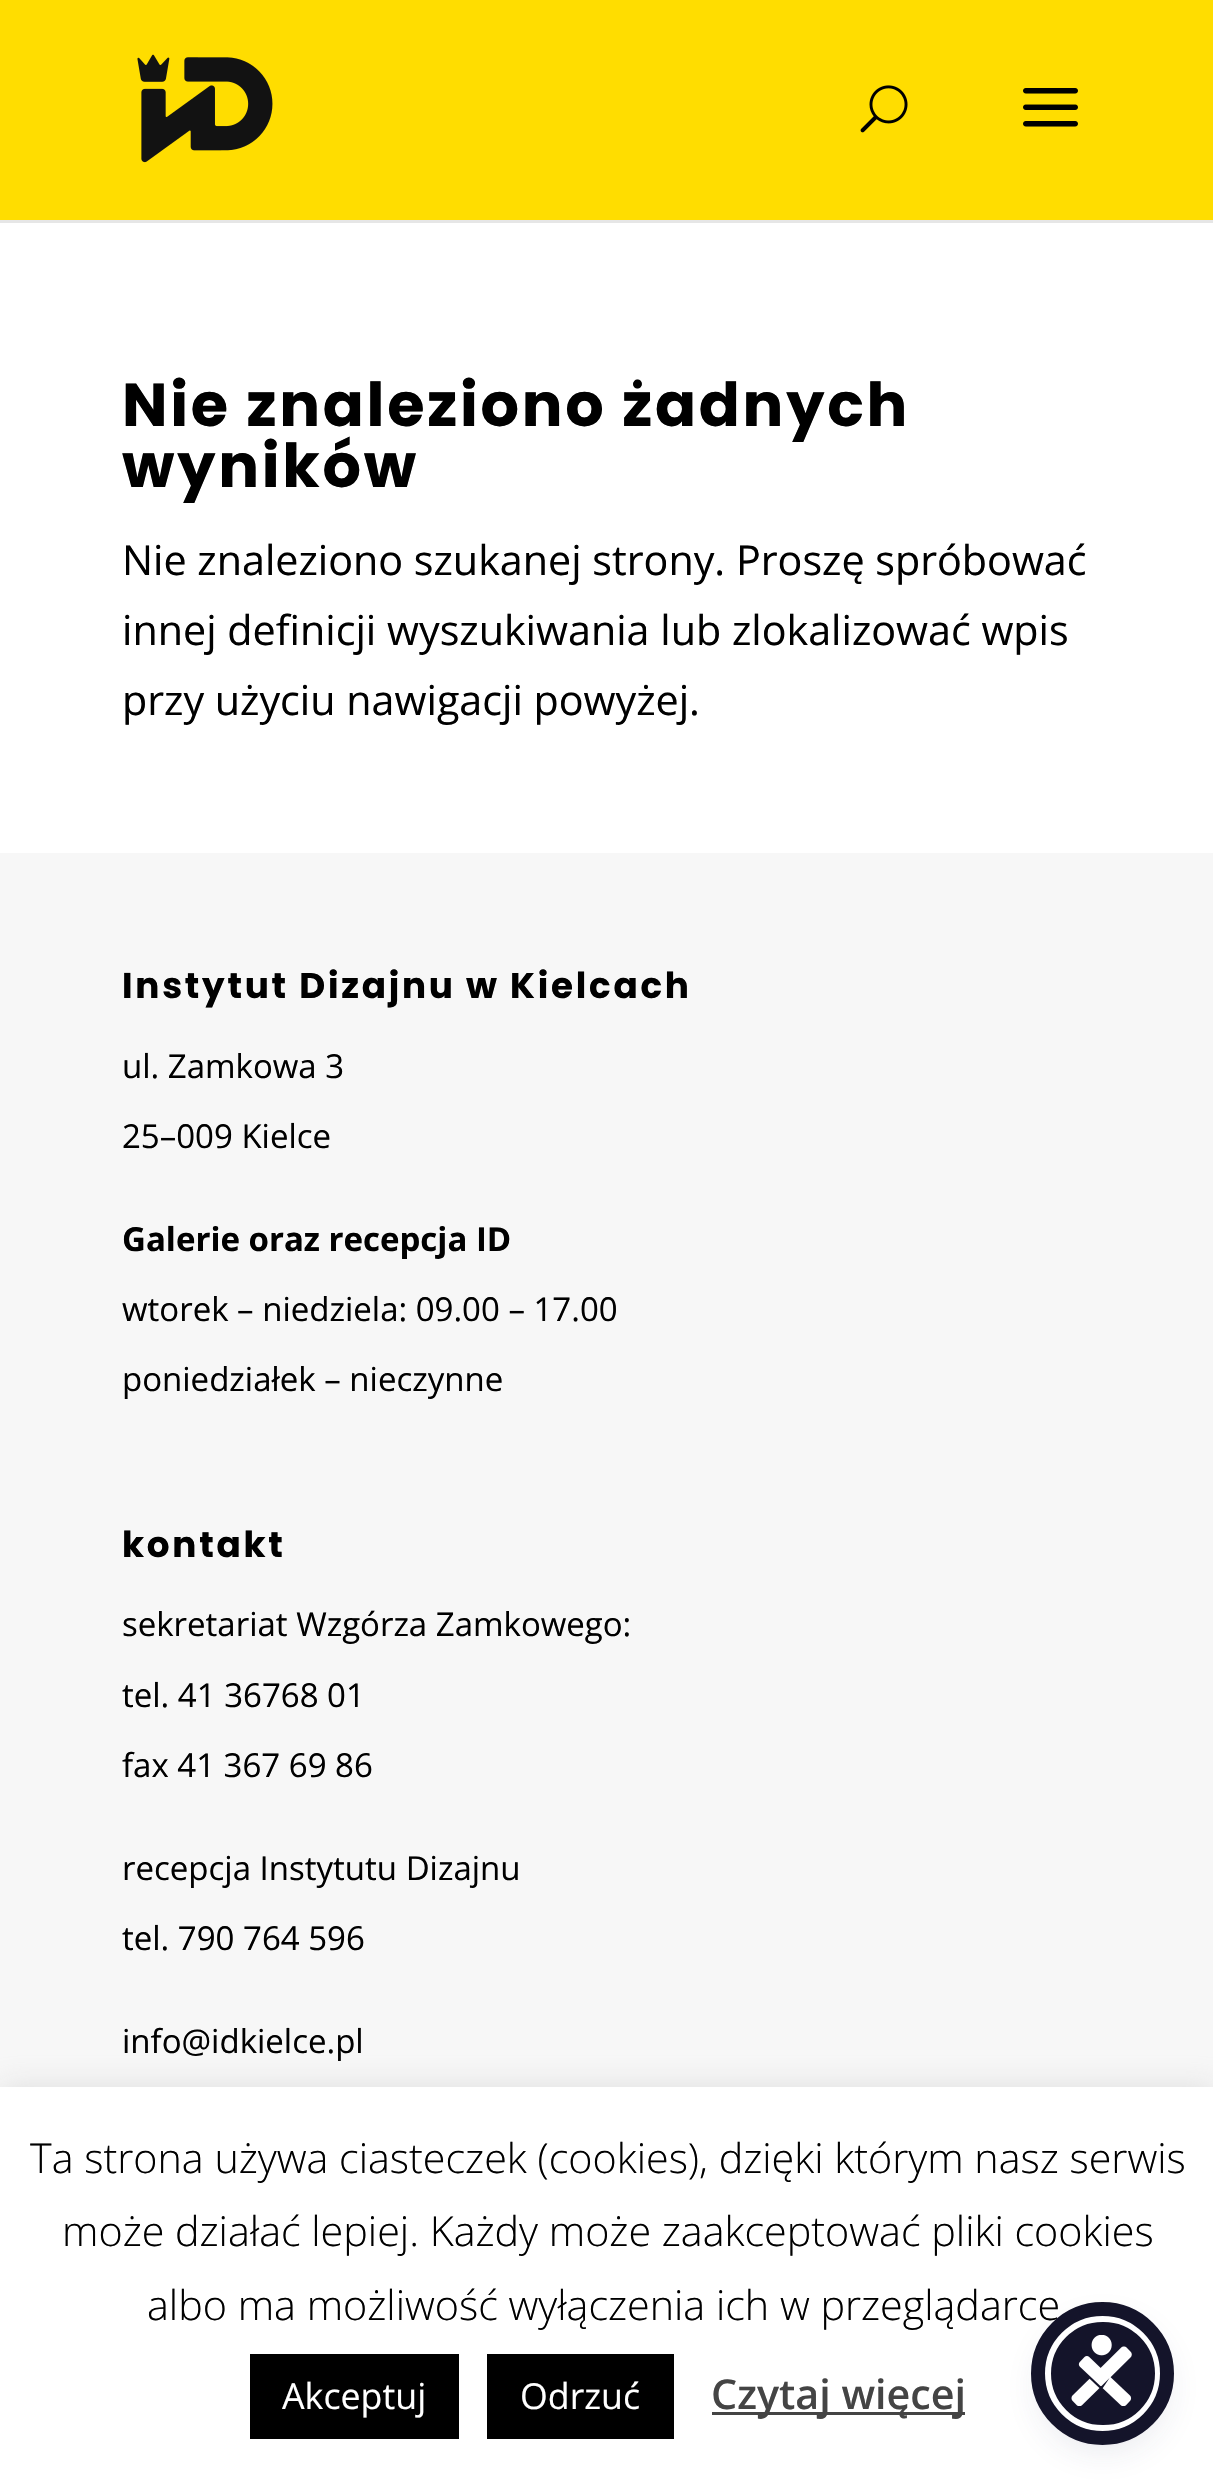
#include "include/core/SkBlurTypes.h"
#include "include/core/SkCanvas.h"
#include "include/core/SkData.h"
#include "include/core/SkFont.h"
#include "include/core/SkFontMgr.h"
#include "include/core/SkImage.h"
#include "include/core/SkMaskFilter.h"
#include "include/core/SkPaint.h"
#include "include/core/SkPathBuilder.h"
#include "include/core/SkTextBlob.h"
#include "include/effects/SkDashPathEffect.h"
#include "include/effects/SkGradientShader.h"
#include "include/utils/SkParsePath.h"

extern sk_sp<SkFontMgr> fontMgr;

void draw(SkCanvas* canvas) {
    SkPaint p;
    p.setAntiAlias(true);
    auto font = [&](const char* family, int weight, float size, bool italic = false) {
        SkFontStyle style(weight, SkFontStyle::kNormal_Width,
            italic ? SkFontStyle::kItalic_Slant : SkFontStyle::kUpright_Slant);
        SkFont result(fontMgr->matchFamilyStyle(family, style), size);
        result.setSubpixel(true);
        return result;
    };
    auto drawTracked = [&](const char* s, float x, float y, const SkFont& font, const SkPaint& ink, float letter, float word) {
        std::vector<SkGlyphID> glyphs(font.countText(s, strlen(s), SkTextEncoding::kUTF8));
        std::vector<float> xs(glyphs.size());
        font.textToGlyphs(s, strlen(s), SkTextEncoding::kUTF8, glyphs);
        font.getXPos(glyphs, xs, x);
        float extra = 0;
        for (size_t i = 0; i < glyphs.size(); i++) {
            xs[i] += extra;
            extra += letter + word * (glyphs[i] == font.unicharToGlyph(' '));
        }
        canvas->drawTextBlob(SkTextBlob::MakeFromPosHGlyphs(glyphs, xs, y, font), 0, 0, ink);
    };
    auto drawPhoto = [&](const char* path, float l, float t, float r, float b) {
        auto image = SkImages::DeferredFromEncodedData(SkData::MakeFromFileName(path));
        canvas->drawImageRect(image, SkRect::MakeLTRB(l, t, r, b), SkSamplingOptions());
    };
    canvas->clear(0xFFFFFFFF);
    p.setColor(0xFFE6E6E6);
    canvas->drawPath(SkPathBuilder().moveTo(0, 220).lineTo(0, 223).lineTo(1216, 223).lineTo(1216, 3).lineTo(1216, 220).close().detach(), p);
    p.setColor(0xFFFFDD00);
    canvas->drawRect(SkRect::MakeLTRB(0, 0, 1213, 220), p);
    drawPhoto("media/1.png", 137, 54, 273, 163);
    drawPhoto("media/2.png", 860, 85, 908, 133);
    drawPhoto("media/3.png", 1023, 88, 1078, 127);
    auto font1 = font("Poppins", 700, 60.5f);
    p.setColor(0xFF000000);
    drawTracked("Nie znaleziono żadnych", 122, 426, font1, p, 2.75f, 0);
    drawTracked("wyników", 122, 487, font1, p, 2.75f, 0);
    auto font2 = font("Open Sans", 400, 41.25f);
    {
        const struct { const char* s; float x, y; } items[] = {
            {"Nie znaleziono szukanej strony. Proszę spróbować", 122, 575},
            {"innej definicji wyszukiwania lub zlokalizować wpis", 122, 645},
            {"przy użyciu nawigacji powyżej.", 122, 715},
        };
        for (auto [s, x, y] : items) {
            canvas->drawString(s, x, y, font2, p);
        }
    }
    p.setColor(0xFFF7F7F7);
    canvas->drawRect(SkRect::MakeLTRB(0, 853, 1213, 2087), p);
    auto font3 = font("Poppins", 700, 35.75f);
    p.setColor(0xFF000000);
    drawTracked("Instytut Dizajnu w Kielcach", 122, 998, font3, p, 2.75f, 0);
    auto font4 = font("Open Sans", 400, 33);
    canvas->drawString("ul. Zamkowa 3", 122, 1078, font4, p);
    canvas->drawString("25–009 Kielce", 122, 1148, font4, p);
    auto font5 = font("Open Sans", 700, 33);
    canvas->drawString("Galerie oraz recepcja ID", 122, 1251, font5, p);
    canvas->drawString("wtorek – niedziela: 09.00 – 17.00", 122, 1321, font4, p);
    canvas->drawString("poniedziałek – nieczynne", 122, 1391, font4, p);
    drawTracked("kontakt", 122, 1557, font3, p, 2.75f, 0);
    {
        const struct { const char* s; float x, y; } items[] = {
            {"sekretariat Wzgórza Zamkowego:", 122, 1636},
            {"tel. 41 36768 01", 122, 1707},
            {"fax 41 367 69 86", 122, 1777},
            {"recepcja Instytutu Dizajnu", 122, 1880},
            {"tel. 790 764 596", 122, 1950},
            {"info@idkielce.pl", 122, 2053},
        };
        for (auto [s, x, y] : items) {
            canvas->drawString(s, x, y, font4, p);
        }
    }
    p.setColor(0x4DACABAB);
    p.setMaskFilter(SkMaskFilter::MakeBlur(kNormal_SkBlurStyle, 14));
    canvas->drawRect(SkRect::MakeLTRB(0, 2085, 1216, 2483), p);
    p.setMaskFilter(nullptr);
    p.setColor(0xFFFFFFFF);
    canvas->drawRect(SkRect::MakeLTRB(0, 2087, 1213, 2486), p);
    auto font6 = font("Open Sans", 300, 41.25f);
    p.setColor(0xFF000000);
    {
        const struct { const char* s; float x, y; } items[] = {
            {"Ta strona używa ciasteczek (cookies), dzięki którym nasz serwis", 30, 2173},
            {"może działać lepiej. Każdy może zaakceptować pliki cookies", 62, 2246},
            {"albo ma możliwość wyłączenia ich w przeglądarce", 147, 2320},
        };
        for (auto [s, x, y] : items) {
            canvas->drawString(s, x, y, font6, p);
        }
    }
    canvas->drawRect(SkRect::MakeLTRB(250, 2354, 459, 2439), p);
    auto font7 = font("Open Sans", 400, 35.75f);
    p.setColor(0xFFFFFFFF);
    canvas->drawString("Akceptuj", 282, 2409, font7, p);
    p.setColor(0xFF000000);
    canvas->drawRect(SkRect::MakeLTRB(487, 2354, 674, 2439), p);
    p.setColor(0xFFFFFFFF);
    canvas->drawString("Odrzuć", 520, 2409, font7, p);
    p.setColor(0xFF444444);
    canvas->drawRect(SkRect::MakeLTRB(712, 2412, 965, 2415), p);
    auto font8 = font("Open Sans", 600, 41.25f);
    canvas->drawString("Czytaj więcej", 711, 2409, font8, p);
    p.setColor(0x335D6494);
    p.setMaskFilter(SkMaskFilter::MakeBlur(kNormal_SkBlurStyle, 5.5f));
    canvas->drawRoundRect(SkRect::MakeLTRB(1045, 2321, 1161, 2437), 58, 58, p);
    p.setMaskFilter(nullptr);
    p.setColor(0x26252C61);
    p.setMaskFilter(SkMaskFilter::MakeBlur(kNormal_SkBlurStyle, 20.5f));
    canvas->drawRoundRect(SkRect::MakeLTRB(1045, 2329, 1161, 2445), 58, 58, p);
    p.setMaskFilter(nullptr);
    p.setColor(0xFF14142A);
    canvas->drawRoundRect(SkRect::MakeLTRB(1048, 2319, 1158, 2428), 54.5f, 54.5f, p);
    p.setStyle(SkPaint::kStroke_Style);
    p.setStrokeWidth(6);
    p.setColor(0xFFFFFFFF);
    canvas->drawRoundRect(SkRect::MakeLTRB(1048, 2319, 1158, 2428), 54.5f, 54.5f, p);
    p.setStrokeWidth(14);
    p.setColor(0xFF14142A);
    canvas->drawCircle(1102.5f, 2373.5f, 64.5f, p);
    drawPhoto("media/4.png", 1071, 2335, 1132, 2406);
}
